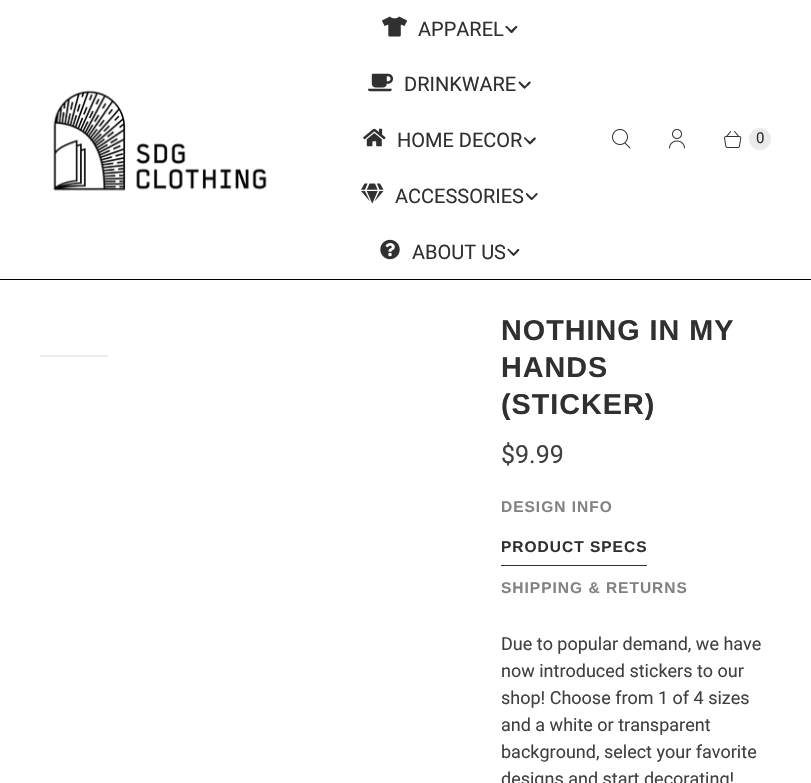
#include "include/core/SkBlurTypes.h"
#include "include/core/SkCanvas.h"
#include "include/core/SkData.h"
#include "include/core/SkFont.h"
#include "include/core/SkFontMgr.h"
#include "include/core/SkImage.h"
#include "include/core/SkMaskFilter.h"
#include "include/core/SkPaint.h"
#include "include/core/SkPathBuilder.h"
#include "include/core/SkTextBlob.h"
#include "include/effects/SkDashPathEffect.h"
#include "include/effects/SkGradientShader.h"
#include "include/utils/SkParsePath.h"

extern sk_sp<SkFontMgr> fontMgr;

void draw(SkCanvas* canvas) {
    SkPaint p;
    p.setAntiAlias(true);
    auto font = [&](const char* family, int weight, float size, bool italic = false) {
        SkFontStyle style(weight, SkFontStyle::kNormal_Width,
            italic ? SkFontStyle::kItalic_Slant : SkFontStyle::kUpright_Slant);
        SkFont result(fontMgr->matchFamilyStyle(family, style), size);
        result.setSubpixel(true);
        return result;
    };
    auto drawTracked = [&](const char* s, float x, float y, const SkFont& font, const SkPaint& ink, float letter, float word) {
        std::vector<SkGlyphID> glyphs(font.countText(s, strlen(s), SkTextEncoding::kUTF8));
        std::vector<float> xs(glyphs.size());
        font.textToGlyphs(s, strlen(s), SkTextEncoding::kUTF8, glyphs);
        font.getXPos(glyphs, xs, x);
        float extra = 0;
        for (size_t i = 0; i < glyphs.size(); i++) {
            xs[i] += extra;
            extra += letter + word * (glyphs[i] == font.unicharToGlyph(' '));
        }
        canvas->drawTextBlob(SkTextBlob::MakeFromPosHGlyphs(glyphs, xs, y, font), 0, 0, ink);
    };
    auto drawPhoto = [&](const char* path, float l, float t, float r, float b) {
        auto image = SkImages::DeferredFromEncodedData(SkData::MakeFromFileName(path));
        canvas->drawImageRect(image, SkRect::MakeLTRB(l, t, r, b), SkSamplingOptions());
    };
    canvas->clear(0xFFFFFFFF);
    p.setColor(0xFF000000);
    canvas->drawRect(SkRect::MakeLTRB(0, 279, 811, 280), p);
    drawPhoto("media/1.png", 53, 90, 267, 191);
    drawPhoto("media/2.png", 382, 16, 407, 37);
    auto font1 = font("Roboto", 400, 20);
    p.setColor(0xFF303030);
    canvas->drawString("APPAREL", 418, 36, font1, p);
    canvas->drawPath(SkPathBuilder().moveTo(507, 26).lineTo(509.5f, 28.5f).cubicTo(510.5f, 29.5f, 512.5f, 31, 512.5f, 32).cubicTo(512, 35, 507.5f, 29.5f, 507.5f, 29).lineTo(505.5f, 27.5f).cubicTo(505, 26.5f, 506.5f, 25.5f, 507, 26).close().detach(), p);
    canvas->drawPath(SkPathBuilder().moveTo(510.5f, 31).lineTo(513, 28.5f).cubicTo(514, 28, 515.5f, 25.5f, 516.5f, 26).cubicTo(519.5f, 26.5f, 514, 30.5f, 514, 31).lineTo(512, 33).cubicTo(511, 33, 510, 32, 510.5f, 31).close().detach(), p);
    drawPhoto("media/3.png", 368, 73, 393, 92);
    canvas->drawString("DRINKWARE", 404, 91, font1, p);
    canvas->drawPath(SkPathBuilder().moveTo(520.5f, 82).lineTo(523, 84.5f).cubicTo(523.5f, 85, 526, 86.5f, 525.5f, 87.5f).cubicTo(525, 90.5f, 521, 85.5f, 520.5f, 85).lineTo(518.5f, 83).cubicTo(518.5f, 82, 519.5f, 81, 520.5f, 82).close().detach(), p);
    canvas->drawPath(SkPathBuilder().moveTo(524, 87).lineTo(526.5f, 84.5f).cubicTo(527, 83.5f, 528.5f, 81.5f, 530, 81.5f).cubicTo(532.5f, 82, 527.5f, 86.5f, 527, 86.5f).lineTo(525, 88.5f).cubicTo(524, 89, 523, 87.5f, 524, 87).close().detach(), p);
    drawPhoto("media/4.png", 363, 128, 386, 147);
    canvas->drawString("HOME DECOR", 397, 147, font1, p);
    canvas->drawPath(SkPathBuilder().moveTo(525.5f, 137.5f).lineTo(528, 140).cubicTo(529, 141, 531, 142, 531, 143.5f).cubicTo(530.5f, 146.5f, 526.5f, 141, 526, 140.5f).lineTo(524, 138.5f).cubicTo(523.5f, 137.5f, 525, 137, 525.5f, 137.5f).close().detach(), p);
    canvas->drawPath(SkPathBuilder().moveTo(529.5f, 142.5f).lineTo(531.5f, 140).cubicTo(532.5f, 139.5f, 534, 137, 535, 137.5f).cubicTo(538, 138, 532.5f, 142, 532.5f, 142.5f).lineTo(530.5f, 144).cubicTo(529.5f, 144.5f, 528.5f, 143.5f, 529.5f, 142.5f).close().detach(), p);
    drawPhoto("media/5.png", 361, 183, 384, 204);
    canvas->drawString("ACCESSORIES", 395, 203, font1, p);
    canvas->drawPath(SkPathBuilder().moveTo(527.5f, 193.5f).lineTo(530, 196).cubicTo(530.5f, 196.5f, 533, 198, 532.5f, 199).cubicTo(532, 202, 528, 196.5f, 527.5f, 196.5f).lineTo(526, 194.5f).cubicTo(525.5f, 193.5f, 526.5f, 192.5f, 527.5f, 193.5f).close().detach(), p);
    canvas->drawPath(SkPathBuilder().moveTo(531, 198.5f).lineTo(533.5f, 196).cubicTo(534.5f, 195, 535.5f, 193, 537, 193).cubicTo(539.5f, 193.5f, 534.5f, 197.5f, 534, 198).lineTo(532, 200).cubicTo(531, 200.5f, 530.5f, 199, 531, 198.5f).close().detach(), p);
    drawPhoto("media/6.png", 380, 239, 400, 260);
    canvas->drawString("ABOUT US", 412, 259, font1, p);
    canvas->drawPath(SkPathBuilder().moveTo(509, 249).lineTo(511.5f, 251.5f).cubicTo(512.5f, 252.5f, 514.5f, 253.5f, 514.5f, 255).cubicTo(514, 257.5f, 510, 252.5f, 509.5f, 252).lineTo(507.5f, 250).cubicTo(507, 249, 508.5f, 248.5f, 509, 249).close().detach(), p);
    canvas->drawPath(SkPathBuilder().moveTo(513, 254).lineTo(515.5f, 251.5f).cubicTo(516, 251, 517.5f, 248.5f, 518.5f, 249).cubicTo(521.5f, 249.5f, 516, 253.5f, 516, 254).lineTo(514, 255.5f).cubicTo(513, 256, 512, 255, 513, 254).close().detach(), p);
    drawPhoto("media/7.png", 612, 129, 631, 149);
    drawPhoto("media/8.png", 669, 129, 685, 149);
    drawPhoto("media/9.png", 724, 131, 742, 148);
    p.setColor(0xFFEAEAEA);
    canvas->drawCircle(760, 139, 11, p);
    auto font2 = font("Roboto", 400, 15);
    p.setColor(0xFF303030);
    canvas->drawString("0", 756, 143, font2, p);
    p.setColor(0xFFECECEC);
    canvas->drawRect(SkRect::MakeLTRB(40, 355, 108, 357), p);
    auto font3 = font("Liberation Sans", 700, 28.75f);
    p.setColor(0xFF303030);
    {
        const struct { const char* s; float x, y; } items[] = {
            {"NOTHING IN MY", 501, 340},
            {"HANDS", 501, 377},
            {"(STICKER)", 501, 414},
        };
        for (auto [s, x, y] : items) {
            drawTracked(s, x, y, font3, p, 1, 0);
        }
    }
    auto font4 = font("Roboto", 400, 25);
    p.setColor(0xFF404040);
    canvas->drawString("$9.99", 501, 463, font4, p);
    auto font5 = font("Liberation Sans", 700, 15.5f);
    p.setColor(0xFF838383);
    drawTracked("DESIGN INFO", 501, 512, font5, p, 1, 0);
    p.setColor(0xFF303030);
    canvas->drawRect(SkRect::MakeLTRB(501, 565, 647, 566), p);
    drawTracked("PRODUCT SPECS", 501, 552, font5, p, 1, 0);
    p.setColor(0xFF838383);
    drawTracked("SHIPPING & RETURNS", 501, 593, font5, p, 1, 0);
    auto font6 = font("Roboto", 400, 18);
    p.setColor(0xFF404040);
    {
        const struct { const char* s; float x, y; } items[] = {
            {"Due to popular demand, we have", 501, 650},
            {"now introduced stickers to our", 501, 677},
            {"shop! Choose from 1 of 4 sizes", 501, 704},
            {"and a white or transparent", 501, 731},
            {"background, select your favorite", 501, 758},
            {"designs and start decorating!", 501, 785},
        };
        for (auto [s, x, y] : items) {
            canvas->drawString(s, x, y, font6, p);
        }
    }
}
